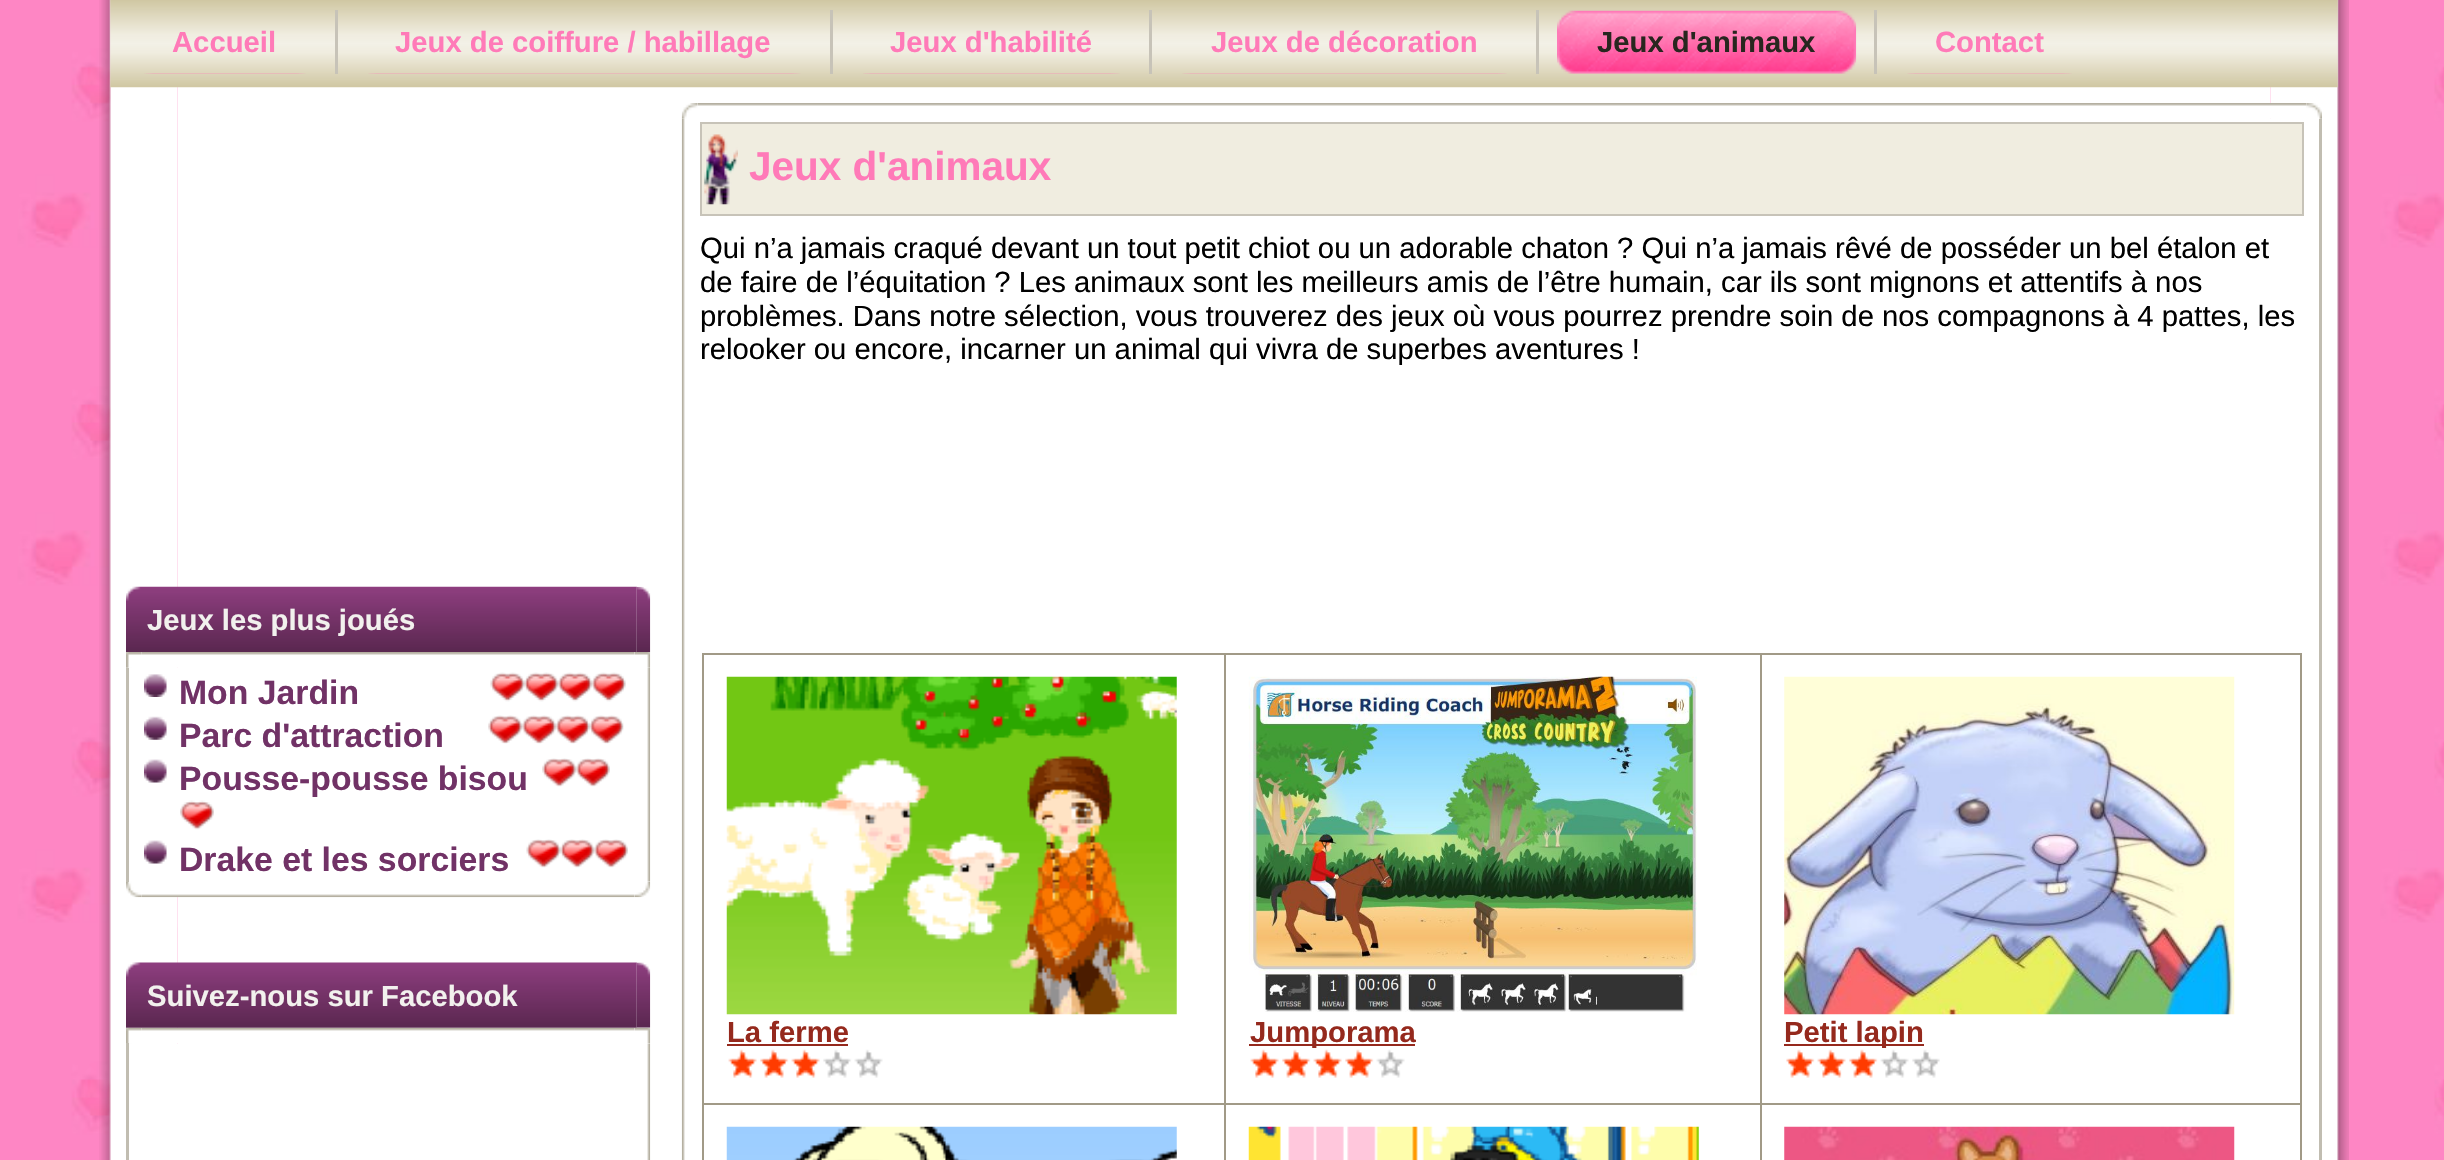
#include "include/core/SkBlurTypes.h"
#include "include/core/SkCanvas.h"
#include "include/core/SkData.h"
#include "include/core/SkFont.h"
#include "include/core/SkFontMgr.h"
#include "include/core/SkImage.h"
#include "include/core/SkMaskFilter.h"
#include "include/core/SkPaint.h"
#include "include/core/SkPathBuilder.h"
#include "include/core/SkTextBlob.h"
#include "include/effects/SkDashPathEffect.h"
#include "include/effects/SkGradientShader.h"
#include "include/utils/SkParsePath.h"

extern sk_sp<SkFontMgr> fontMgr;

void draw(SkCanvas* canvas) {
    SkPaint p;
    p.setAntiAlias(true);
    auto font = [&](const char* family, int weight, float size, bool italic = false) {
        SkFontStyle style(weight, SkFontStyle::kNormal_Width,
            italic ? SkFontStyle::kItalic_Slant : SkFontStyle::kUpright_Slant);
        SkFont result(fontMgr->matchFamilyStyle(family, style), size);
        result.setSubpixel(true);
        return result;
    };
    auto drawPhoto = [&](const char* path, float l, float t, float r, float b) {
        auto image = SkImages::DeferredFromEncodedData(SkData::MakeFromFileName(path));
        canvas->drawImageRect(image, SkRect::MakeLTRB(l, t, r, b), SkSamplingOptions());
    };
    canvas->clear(0xFFFFFFFF);
    drawPhoto("media/1.png", 0, 0, 2444, 1160);
    drawPhoto("media/2.png", 99, 0, 178, 1160);
    drawPhoto("media/60.png", 2270, 0, 2349, 1160);
    p.setColor(0xFFFFFFFF);
    canvas->drawRect(SkRect::MakeLTRB(178, 87, 2270, 1160), p);
    drawPhoto("media/3.png", 110, 0, 2338, 88);
    auto font1 = font("Liberation Sans", 700, 29.25f);
    p.setColor(0xFFFF7AB8);
    canvas->drawString("Accueil", 172, 52, font1, p);
    drawPhoto("media/4.png", 144, 73, 297, 74);
    drawPhoto("media/5.png", 297, 73, 306, 74);
    p.setColor(0xFFC7C3B8);
    canvas->drawRect(SkRect::MakeLTRB(335, 10, 338, 74), p);
    p.setColor(0xFFFF7AB8);
    canvas->drawString("Jeux de coiffure / habillage", 395, 52, font1, p);
    drawPhoto("media/6.png", 368, 73, 792, 74);
    drawPhoto("media/7.png", 792, 73, 801, 74);
    p.setColor(0xFFC7C3B8);
    canvas->drawRect(SkRect::MakeLTRB(830, 10, 833, 74), p);
    p.setColor(0xFFFF7AB8);
    canvas->drawString("Jeux d'habilité", 890, 52, font1, p);
    drawPhoto("media/8.png", 863, 73, 1112, 74);
    drawPhoto("media/9.png", 1111, 73, 1120, 74);
    p.setColor(0xFFC7C3B8);
    canvas->drawRect(SkRect::MakeLTRB(1149, 10, 1152, 74), p);
    p.setColor(0xFFFF7AB8);
    canvas->drawString("Jeux de décoration", 1211, 52, font1, p);
    drawPhoto("media/10.png", 1182, 73, 1499, 74);
    drawPhoto("media/9.png", 1498, 73, 1507, 74);
    p.setColor(0xFFC7C3B8);
    canvas->drawRect(SkRect::MakeLTRB(1536, 10, 1539, 74), p);
    drawPhoto("media/11.png", 1557, 10, 1836, 74);
    drawPhoto("media/12.png", 1836, 10, 1857, 74);
    p.setColor(0xFF28261F);
    canvas->drawString("Jeux d'animaux", 1597, 52, font1, p);
    p.setColor(0xFFC7C3B8);
    canvas->drawRect(SkRect::MakeLTRB(1874, 10, 1877, 74), p);
    p.setColor(0xFFFF7AB8);
    canvas->drawString("Contact", 1935, 52, font1, p);
    drawPhoto("media/13.png", 1907, 73, 2064, 74);
    drawPhoto("media/14.png", 2063, 73, 2072, 74);
    drawPhoto("media/15.png", 126, 586, 637, 652);
    drawPhoto("media/16.png", 636, 586, 651, 652);
    p.setColor(0xFFF2F1EE);
    canvas->drawString("Jeux les plus joués", 147, 630, font1, p);
    drawPhoto("media/17.png", 126, 652, 142, 668);
    drawPhoto("media/19.png", 634, 652, 651, 668);
    drawPhoto("media/18.png", 142, 652, 635, 668);
    drawPhoto("media/37.png", 126, 881, 142, 898);
    p.setColor(0xFFC1BDB1);
    canvas->drawRect(SkRect::MakeLTRB(126, 668, 129, 882), p);
    p.setColor(0xFFFFFFFF);
    canvas->drawRect(SkRect::MakeLTRB(177, 668, 178, 882), p);
    drawPhoto("media/20.png", 144, 674, 167, 697);
    auto font2 = font("Liberation Sans", 700, 33.75f);
    p.setColor(0xFF713266);
    canvas->drawString("Mon Jardin", 179, 704, font2, p);
    drawPhoto("media/21.png", 490, 672, 525, 702);
    drawPhoto("media/22.png", 524, 672, 558, 702);
    drawPhoto("media/23.png", 558, 672, 592, 702);
    drawPhoto("media/24.png", 591, 672, 626, 702);
    drawPhoto("media/25.png", 144, 716, 167, 740);
    canvas->drawString("Parc d'attraction", 179, 747, font2, p);
    drawPhoto("media/26.png", 488, 715, 522, 744);
    drawPhoto("media/27.png", 522, 715, 556, 744);
    drawPhoto("media/28.png", 555, 715, 590, 744);
    drawPhoto("media/29.png", 589, 715, 624, 744);
    drawPhoto("media/30.png", 144, 759, 167, 783);
    canvas->drawString("Pousse-pousse bisou", 179, 790, font2, p);
    drawPhoto("media/31.png", 542, 758, 576, 787);
    drawPhoto("media/32.png", 576, 758, 610, 787);
    drawPhoto("media/33.png", 180, 800, 214, 830);
    drawPhoto("media/30.png", 144, 840, 167, 864);
    canvas->drawString("Drake et les sorciers", 179, 871, font2, p);
    drawPhoto("media/34.png", 526, 839, 561, 868);
    drawPhoto("media/35.png", 560, 839, 594, 868);
    drawPhoto("media/32.png", 594, 839, 628, 868);
    drawPhoto("media/39.png", 634, 881, 651, 898);
    drawPhoto("media/36.png", 647, 668, 651, 882);
    drawPhoto("media/38.png", 142, 882, 635, 898);
    drawPhoto("media/40.png", 126, 962, 637, 1028);
    drawPhoto("media/41.png", 636, 962, 651, 1028);
    p.setColor(0xFFF2F1EE);
    canvas->drawString("Suivez-nous sur Facebook", 147, 1006, font1, p);
    drawPhoto("media/42.png", 126, 1027, 142, 1044);
    drawPhoto("media/44.png", 634, 1027, 651, 1044);
    drawPhoto("media/43.png", 142, 1027, 635, 1044);
    p.setColor(0xFFC1BDB1);
    canvas->drawRect(SkRect::MakeLTRB(126, 1043, 129, 1160), p);
    p.setColor(0xFFFFFFFF);
    canvas->drawRect(SkRect::MakeLTRB(177, 1044, 178, 1160), p);
    drawPhoto("media/45.png", 647, 1043, 651, 1160);
    drawPhoto("media/46.png", 681, 103, 698, 119);
    drawPhoto("media/47.png", 697, 103, 2306, 119);
    drawPhoto("media/48.png", 2306, 103, 2322, 119);
    drawPhoto("media/49.png", 681, 119, 685, 1160);
    canvas->drawRect(SkRect::MakeLTRB(2270, 119, 2271, 1160), p);
    p.setColor(0xFFC1BDB1);
    canvas->drawRect(SkRect::MakeLTRB(2319, 119, 2322, 1160), p);
    p.setColor(0xFFF0EDE0);
    canvas->drawRect(SkRect::MakeLTRB(701, 123, 2303, 215), p);
    p.setStyle(SkPaint::kStroke_Style);
    p.setStrokeWidth(2);
    p.setColor(0xFFC7C3B8);
    canvas->drawRect(SkRect::MakeLTRB(701, 123, 2303, 215), p);
    drawPhoto("media/50.png", 704, 134, 738, 205);
    auto font3 = font("Liberation Sans", 700, 40.5f);
    p.setStyle(SkPaint::kFill_Style);
    p.setColor(0xFFFF7AB8);
    canvas->drawString("Jeux d'animaux", 749, 180, font3, p);
    auto font4 = font("Liberation Sans", 400, 29.25f);
    p.setColor(0xFF000000);
    {
        const struct { const char* s; float x, y; } items[] = {
            {"Qui n’a jamais craqué devant un tout petit chiot ou un adorable chaton ? Qui n’a jamais rêvé de posséder un bel étalon et", 700, 258},
            {"de faire de l’équitation ? Les animaux sont les meilleurs amis de l’être humain, car ils sont mignons et attentifs à nos", 700, 292},
            {"problèmes. Dans notre sélection, vous trouverez des jeux où vous pourrez prendre soin de nos compagnons à 4 pattes, les", 700, 326},
            {"relooker ou encore, incarner un animal qui vivra de superbes aventures !", 700, 359},
        };
        for (auto [s, x, y] : items) {
            canvas->drawString(s, x, y, font4, p);
        }
    }
    {
        const struct { float l, t, r, b; SkColor color; } items[] = {
            {1760, 653, 2302, 655, 0xFFA19A87},
            {1760, 1103, 2302, 1105, 0xFFA19A87},
            {1760, 1103, 1762, 1160, 0xFFA19A87},
            {1224, 1103, 1762, 1105, 0xFFA19A87},
            {1760, 653, 1762, 1105, 0xFFA19A87},
            {1224, 653, 1762, 655, 0xFFA19A87},
            {1224, 1103, 1226, 1160, 0xFFA19A87},
            {702, 1103, 1226, 1105, 0xFFA19A87},
            {1224, 653, 1226, 1105, 0xFFA19A87},
            {702, 653, 1226, 655, 0xFFA19A87},
            {702, 1103, 704, 1160, 0xFFA19A87},
            {702, 653, 704, 1105, 0xFFA19A87},
        };
        for (auto [l, t, r, b, color] : items) {
            p.setColor(color);
            canvas->drawRect(SkRect::MakeLTRB(l, t, r, b), p);
        }
    }
    drawPhoto("media/51.png", 726, 676, 1177, 1015);
    p.setColor(0xFF95291D);
    canvas->drawString("La ferme", 727, 1042, font1, p);
    canvas->drawRect(SkRect::MakeLTRB(727, 1044, 848, 1046), p);
    drawPhoto("media/52.png", 728, 1049, 883, 1078);
    drawPhoto("media/53.png", 1248, 676, 1697, 1012);
    canvas->drawRect(SkRect::MakeLTRB(1249, 1044, 1415, 1046), p);
    canvas->drawString("Jumporama", 1250, 1042, font1, p);
    drawPhoto("media/54.png", 1250, 1049, 1405, 1078);
    p.setColor(0xFFA19A87);
    canvas->drawRect(SkRect::MakeLTRB(2300, 1103, 2302, 1160), p);
    canvas->drawRect(SkRect::MakeLTRB(2300, 653, 2302, 1105), p);
    drawPhoto("media/55.png", 1784, 676, 2235, 1015);
    p.setColor(0xFF95291D);
    canvas->drawRect(SkRect::MakeLTRB(1784, 1044, 1924, 1046), p);
    canvas->drawString("Petit lapin", 1784, 1042, font1, p);
    drawPhoto("media/56.png", 1786, 1049, 1940, 1078);
    drawPhoto("media/57.png", 726, 1126, 1177, 1160);
    drawPhoto("media/58.png", 1248, 1126, 1699, 1160);
    drawPhoto("media/59.png", 1784, 1126, 2235, 1160);
}
